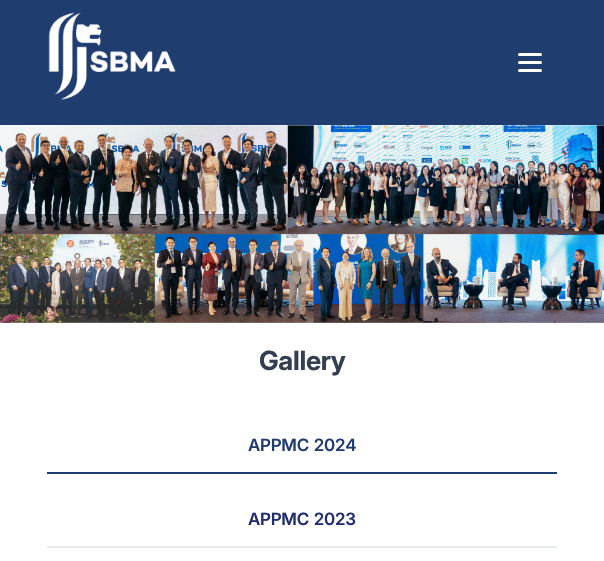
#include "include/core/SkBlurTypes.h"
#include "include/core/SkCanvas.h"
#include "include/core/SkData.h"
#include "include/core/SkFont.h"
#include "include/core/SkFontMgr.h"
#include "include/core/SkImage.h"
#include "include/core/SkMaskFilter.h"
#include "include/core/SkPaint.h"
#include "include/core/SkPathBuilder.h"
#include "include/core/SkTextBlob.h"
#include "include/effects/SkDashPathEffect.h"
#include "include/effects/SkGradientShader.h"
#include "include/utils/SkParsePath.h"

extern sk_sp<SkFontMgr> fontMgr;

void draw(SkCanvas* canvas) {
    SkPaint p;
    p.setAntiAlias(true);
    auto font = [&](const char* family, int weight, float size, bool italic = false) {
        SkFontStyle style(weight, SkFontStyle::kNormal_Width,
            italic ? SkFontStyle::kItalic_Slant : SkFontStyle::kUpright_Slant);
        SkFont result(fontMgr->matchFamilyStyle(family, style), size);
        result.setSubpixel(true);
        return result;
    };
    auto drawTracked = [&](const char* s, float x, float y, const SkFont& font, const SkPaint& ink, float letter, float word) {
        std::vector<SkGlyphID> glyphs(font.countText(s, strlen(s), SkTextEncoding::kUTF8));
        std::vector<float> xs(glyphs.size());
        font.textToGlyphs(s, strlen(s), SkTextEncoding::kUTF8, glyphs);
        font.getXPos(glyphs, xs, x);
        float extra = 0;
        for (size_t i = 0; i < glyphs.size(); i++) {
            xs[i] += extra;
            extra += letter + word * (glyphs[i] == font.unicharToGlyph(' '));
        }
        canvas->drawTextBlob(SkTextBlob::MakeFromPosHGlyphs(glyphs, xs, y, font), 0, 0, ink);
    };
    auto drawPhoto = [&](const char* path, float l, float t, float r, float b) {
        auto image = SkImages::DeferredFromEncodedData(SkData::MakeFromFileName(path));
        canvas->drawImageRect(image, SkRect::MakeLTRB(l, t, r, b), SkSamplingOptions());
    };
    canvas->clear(0xFFFFFFFF);
    p.setColor(0xFF203D70);
    canvas->drawRect(SkRect::MakeLTRB(0, 0, 604, 125), p);
    drawPhoto("media/1.png", 48, 12, 176, 100);
    p.setColor(0xFFFFFFFF);
    canvas->drawRoundRect(SkRect::MakeLTRB(518, 53, 542, 56), 1.5f, 1.5f, p);
    canvas->drawRoundRect(SkRect::MakeLTRB(518, 61, 542, 64), 1.5f, 1.5f, p);
    canvas->drawRoundRect(SkRect::MakeLTRB(518, 69, 542, 72), 1.5f, 1.5f, p);
    drawPhoto("media/2.png", 0, 125, 604, 323);
    auto font1 = font("Inter", 700, 26.5f);
    p.setColor(0xFF343F52);
    drawTracked("Gallery", 259, 370, font1, p, -0.25f, 0);
    p.setColor(0xFF203D70);
    canvas->drawRect(SkRect::MakeLTRB(47, 472, 557, 474), p);
    auto font2 = font("Inter", 600, 17);
    drawTracked("APPMC 2024", 248, 451, font2, p, -0.25f, 1);
    p.setColor(0xFFE8EBF1);
    canvas->drawRect(SkRect::MakeLTRB(47, 546, 557, 548), p);
    p.setColor(0xFF202D70);
    drawTracked("APPMC 2023", 248, 525, font2, p, -0.25f, 1);
}
